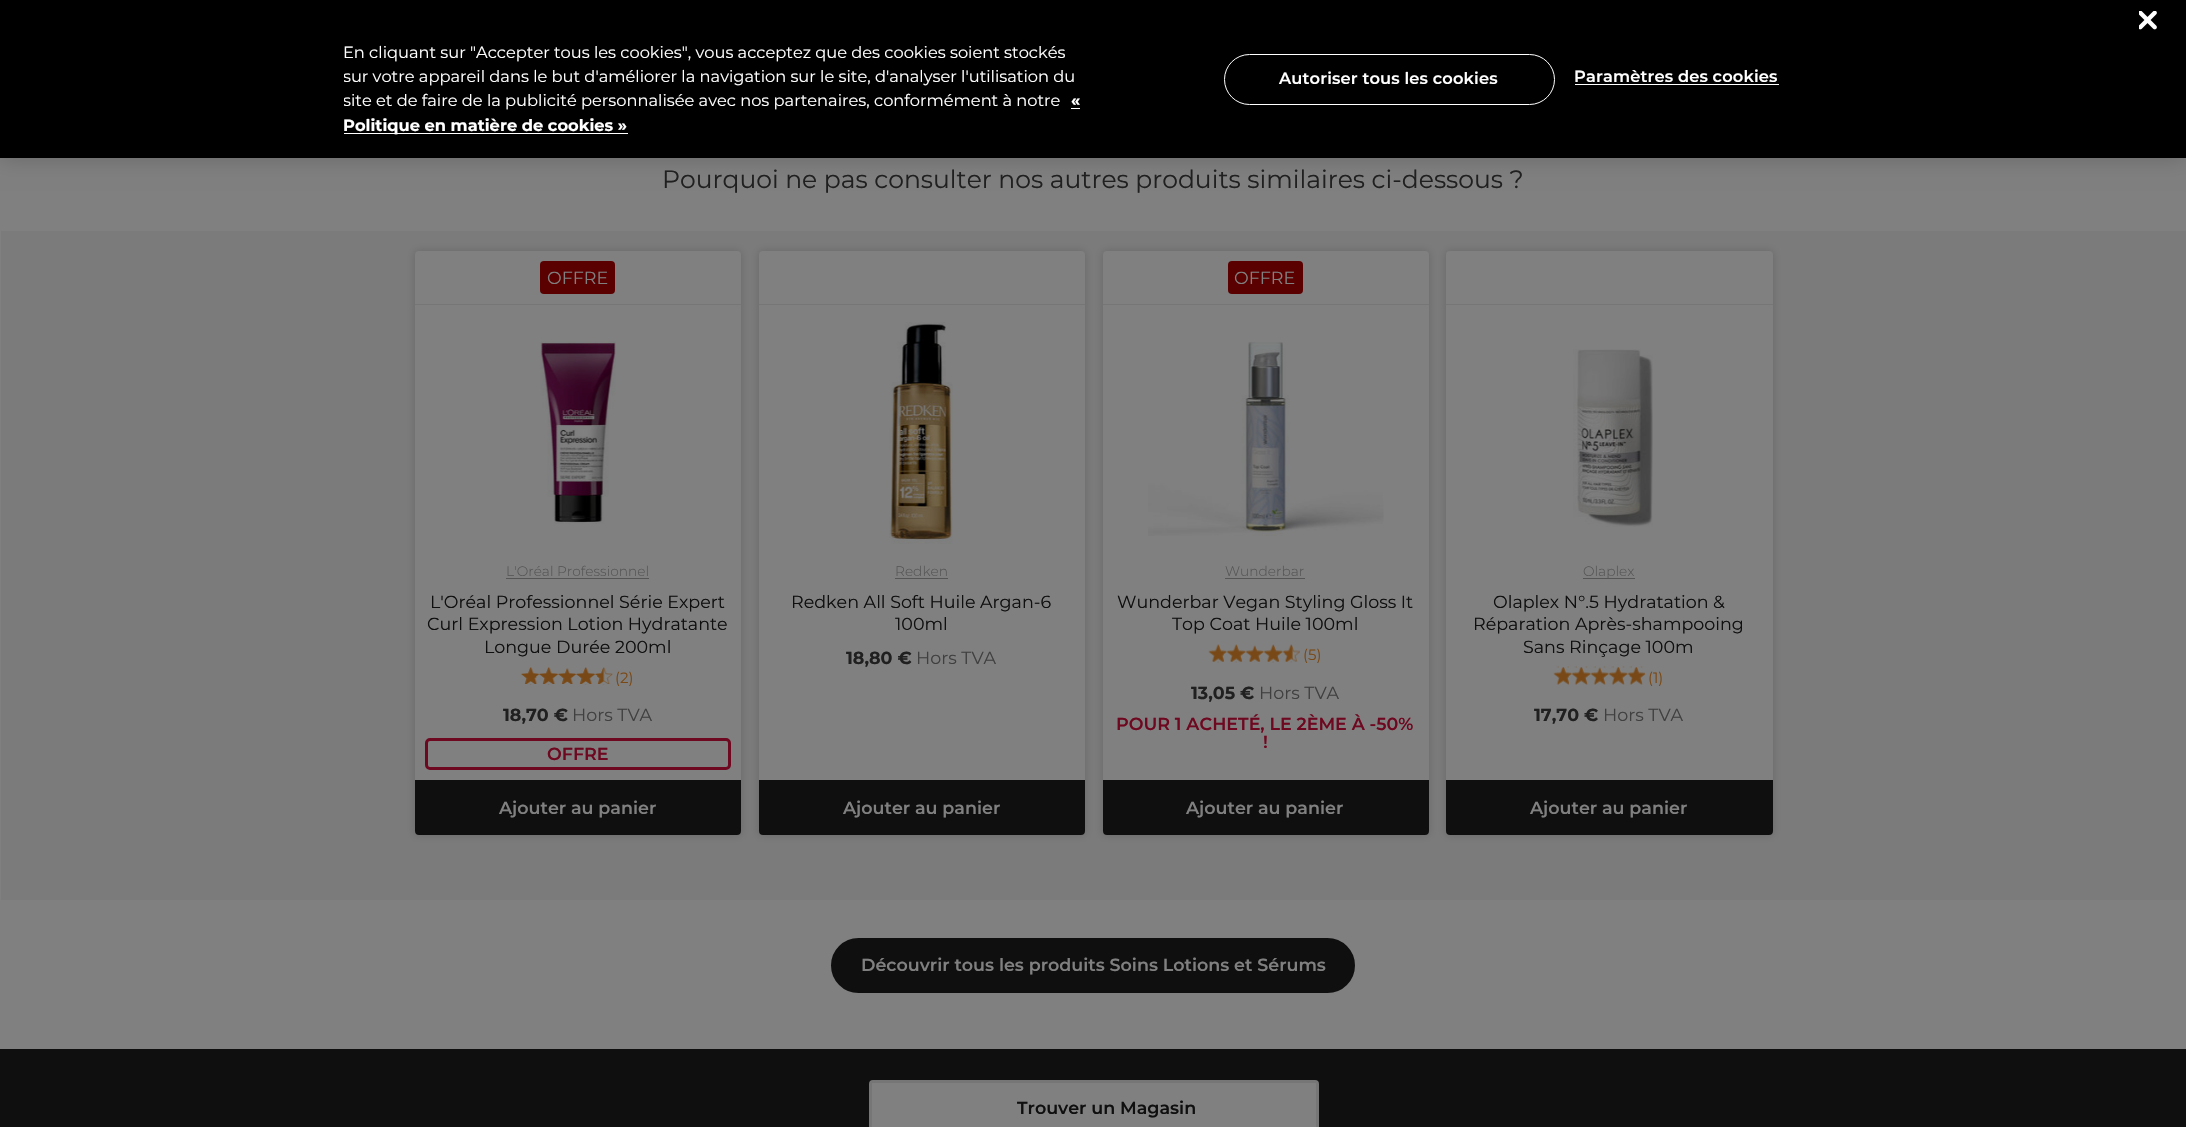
#include "include/core/SkBlurTypes.h"
#include "include/core/SkCanvas.h"
#include "include/core/SkData.h"
#include "include/core/SkFont.h"
#include "include/core/SkFontMgr.h"
#include "include/core/SkImage.h"
#include "include/core/SkMaskFilter.h"
#include "include/core/SkPaint.h"
#include "include/core/SkPathBuilder.h"
#include "include/core/SkTextBlob.h"
#include "include/effects/SkDashPathEffect.h"
#include "include/effects/SkGradientShader.h"
#include "include/utils/SkParsePath.h"

extern sk_sp<SkFontMgr> fontMgr;

void draw(SkCanvas* canvas) {
    SkPaint p;
    p.setAntiAlias(true);
    auto font = [&](const char* family, int weight, float size, bool italic = false) {
        SkFontStyle style(weight, SkFontStyle::kNormal_Width,
            italic ? SkFontStyle::kItalic_Slant : SkFontStyle::kUpright_Slant);
        SkFont result(fontMgr->matchFamilyStyle(family, style), size);
        result.setSubpixel(true);
        return result;
    };
    auto drawTracked = [&](const char* s, float x, float y, const SkFont& font, const SkPaint& ink, float letter, float word) {
        std::vector<SkGlyphID> glyphs(font.countText(s, strlen(s), SkTextEncoding::kUTF8));
        std::vector<float> xs(glyphs.size());
        font.textToGlyphs(s, strlen(s), SkTextEncoding::kUTF8, glyphs);
        font.getXPos(glyphs, xs, x);
        float extra = 0;
        for (size_t i = 0; i < glyphs.size(); i++) {
            xs[i] += extra;
            extra += letter + word * (glyphs[i] == font.unicharToGlyph(' '));
        }
        canvas->drawTextBlob(SkTextBlob::MakeFromPosHGlyphs(glyphs, xs, y, font), 0, 0, ink);
    };
    auto drawPhoto = [&](const char* path, float l, float t, float r, float b) {
        auto image = SkImages::DeferredFromEncodedData(SkData::MakeFromFileName(path));
        canvas->drawImageRect(image, SkRect::MakeLTRB(l, t, r, b), SkSamplingOptions());
    };
    canvas->clear(0xFF808080);
    p.setColor(0x33000000);
    p.setMaskFilter(SkMaskFilter::MakeBlur(kNormal_SkBlurStyle, 11));
    canvas->drawRect(SkRect::MakeLTRB(0, 0, 2186, 158), p);
    p.setMaskFilter(nullptr);
    p.setColor(0xFF000000);
    canvas->drawRect(SkRect::MakeLTRB(0, 0, 2186, 158), p);
    drawPhoto("media/1.png", 2139, 11, 2157, 30);
    auto font1 = font("Montserrat", 400, 16.25f);
    p.setColor(0xFFFFFFFF);
    canvas->drawString("En cliquant sur \"Accepter tous les cookies\", vous acceptez que des cookies soient stockés", 343, 58, font1, p);
    canvas->save();
    canvas->clipRect(SkRect::MakeLTRB(344, 40, 1094, 138));
    canvas->drawString("sur votre appareil dans le but d'améliorer la navigation sur le site, d'analyser l'utilisation du", 343, 82, font1, p);
    canvas->drawString("site et de faire de la publicité personnalisée avec nos partenaires, conformément à notre", 343, 106, font1, p);
    canvas->restore();
    auto font2 = font("Montserrat", 700, 16.25f);
    canvas->drawString("«", 1071, 106, font2, p);
    canvas->drawRect(SkRect::MakeLTRB(1071, 108, 1080, 109), p);
    canvas->drawRect(SkRect::MakeLTRB(344, 133, 628, 134), p);
    canvas->drawString("Politique en matière de cookies »", 343, 131, font2, p);
    p.setStyle(SkPaint::kStroke_Style);
    p.setStrokeWidth(1);
    canvas->drawRoundRect(SkRect::MakeLTRB(1224.5f, 54.5f, 1554.5f, 104.5f), 25, 25, p);
    auto font3 = font("Montserrat", 600, 16.25f);
    p.setStyle(SkPaint::kFill_Style);
    drawTracked("Autoriser tous les cookies", 1279, 84, font3, p, 0.15f, 0);
    drawTracked("Paramètres des cookies", 1574, 82, font3, p, 0.15f, 0);
    canvas->drawRect(SkRect::MakeLTRB(1575, 84, 1779, 85), p);
    auto font4 = font("Montserrat", 400, 25);
    p.setColor(0xFF202020);
    canvas->drawString("Pourquoi ne pas consulter nos autres produits similaires ci-dessous ?", 662, 188, font4, p);
    p.setColor(0xFF7B7B7B);
    canvas->drawRect(SkRect::MakeLTRB(1, 231, 2186, 900), p);
    p.setColor(0x29000000);
    p.setMaskFilter(SkMaskFilter::MakeBlur(kNormal_SkBlurStyle, 4));
    canvas->drawRoundRect(SkRect::MakeLTRB(415, 251, 741, 835), 4, 4, p);
    p.setMaskFilter(nullptr);
    p.setColor(0xFF808080);
    canvas->drawRoundRect(SkRect::MakeLTRB(415, 251, 741, 835), 4, 4, p);
    p.setColor(0xFF767676);
    canvas->drawRect(SkRect::MakeLTRB(415, 304, 741, 305), p);
    p.setColor(0xFF5B0000);
    canvas->drawRoundRect(SkRect::MakeLTRB(540, 261, 615, 294), 4, 4, p);
    auto font5 = font("Montserrat", 400, 17.5f);
    p.setColor(0xFF808080);
    canvas->drawString("OFFRE", 547, 284, font5, p);
    drawPhoto("media/2.png", 540, 341, 616, 524);
    auto font6 = font("Montserrat", 300, 13.75f);
    p.setColor(0xFF565556);
    canvas->drawString("L'Oréal Professionnel", 506, 576, font6, p);
    canvas->drawRect(SkRect::MakeLTRB(506, 578, 649, 579), p);
    p.setColor(0xFF100F0F);
    {
        const struct { const char* s; float x, y; } items[] = {
            {"L'Oréal Professionnel Série Expert", 430, 608},
            {"Curl Expression Lotion Hydratante", 427, 630},
            {"Longue Durée 200ml", 484, 653},
        };
        for (auto [s, x, y] : items) {
            canvas->drawString(s, x, y, font5, p);
        }
    }
    drawPhoto("media/3.png", 521, 667, 613, 685);
    drawPhoto("media/4.png", 521, 667, 605, 685);
    auto font7 = font("Montserrat", 400, 15);
    p.setColor(0xFF794916);
    canvas->drawString("(2)", 615, 683, font7, p);
    auto font8 = font("Montserrat", 700, 17.5f);
    p.setColor(0xFF202020);
    canvas->drawString("18,70 €", 503, 721, font8, p);
    p.setColor(0xFF404040);
    canvas->drawString("Hors TVA", 572, 721, font5, p);
    p.setStyle(SkPaint::kStroke_Style);
    p.setStrokeWidth(3);
    p.setColor(0xFF6E0820);
    canvas->drawRoundRect(SkRect::MakeLTRB(426.5f, 739.5f, 729.5f, 768.5f), 3.5f, 3.5f, p);
    auto font9 = font("Montserrat", 600, 17.5f);
    p.setStyle(SkPaint::kFill_Style);
    canvas->drawString("OFFRE", 547, 760, font9, p);
    p.setColor(0xFF100F0F);
    canvas->drawPath(SkPathBuilder().moveTo(416.5f, 781.5f).lineTo(739.5f, 781.5f).lineTo(739.5f, 831).cubicTo(739.5f, 832.5f, 738.5f, 833.5f, 737, 833.5f).lineTo(419, 833.5f).cubicTo(417.5f, 833.5f, 416.5f, 832.5f, 416.5f, 831).close().detach(), p);
    p.setStyle(SkPaint::kStroke_Style);
    canvas->drawPath(SkPathBuilder().moveTo(416.5f, 781.5f).lineTo(739.5f, 781.5f).lineTo(739.5f, 831).cubicTo(739.5f, 832.5f, 738.5f, 833.5f, 737, 833.5f).lineTo(419, 833.5f).cubicTo(417.5f, 833.5f, 416.5f, 832.5f, 416.5f, 831).close().detach(), p);
    p.setStyle(SkPaint::kFill_Style);
    p.setColor(0xFF808080);
    canvas->drawString("Ajouter au panier", 499, 814, font9, p);
    p.setColor(0x29000000);
    p.setMaskFilter(SkMaskFilter::MakeBlur(kNormal_SkBlurStyle, 4));
    canvas->drawRoundRect(SkRect::MakeLTRB(759, 251, 1085, 835), 4, 4, p);
    p.setMaskFilter(nullptr);
    p.setColor(0xFF808080);
    canvas->drawRoundRect(SkRect::MakeLTRB(759, 251, 1085, 835), 4, 4, p);
    p.setColor(0xFF767676);
    canvas->drawRect(SkRect::MakeLTRB(759, 304, 1085, 305), p);
    drawPhoto("media/5.png", 889, 322, 953, 544);
    p.setColor(0xFF565556);
    canvas->drawString("Redken", 895, 576, font6, p);
    canvas->drawRect(SkRect::MakeLTRB(895, 578, 948, 579), p);
    p.setColor(0xFF100F0F);
    canvas->drawString("Redken All Soft Huile Argan-6", 791, 608, font5, p);
    canvas->drawString("100ml", 895, 630, font5, p);
    p.setColor(0xFF202020);
    canvas->drawString("18,80 €", 846, 664, font8, p);
    p.setColor(0xFF404040);
    canvas->drawString("Hors TVA", 916, 664, font5, p);
    p.setColor(0xFF100F0F);
    canvas->drawPath(SkPathBuilder().moveTo(760.5f, 781.5f).lineTo(1083.5f, 781.5f).lineTo(1083.5f, 831).cubicTo(1083.5f, 832.5f, 1082.5f, 833.5f, 1081, 833.5f).lineTo(763, 833.5f).cubicTo(761.5f, 833.5f, 760.5f, 832.5f, 760.5f, 831).close().detach(), p);
    p.setStyle(SkPaint::kStroke_Style);
    canvas->drawPath(SkPathBuilder().moveTo(760.5f, 781.5f).lineTo(1083.5f, 781.5f).lineTo(1083.5f, 831).cubicTo(1083.5f, 832.5f, 1082.5f, 833.5f, 1081, 833.5f).lineTo(763, 833.5f).cubicTo(761.5f, 833.5f, 760.5f, 832.5f, 760.5f, 831).close().detach(), p);
    p.setStyle(SkPaint::kFill_Style);
    p.setColor(0xFF808080);
    canvas->drawString("Ajouter au panier", 843, 814, font9, p);
    p.setColor(0x29000000);
    p.setMaskFilter(SkMaskFilter::MakeBlur(kNormal_SkBlurStyle, 4));
    canvas->drawRoundRect(SkRect::MakeLTRB(1103, 251, 1429, 835), 4, 4, p);
    p.setMaskFilter(nullptr);
    p.setColor(0xFF808080);
    canvas->drawRoundRect(SkRect::MakeLTRB(1103, 251, 1429, 835), 4, 4, p);
    p.setColor(0xFF767676);
    canvas->drawRect(SkRect::MakeLTRB(1103, 304, 1429, 305), p);
    p.setColor(0xFF5B0000);
    canvas->drawRoundRect(SkRect::MakeLTRB(1228, 261, 1303, 294), 4, 4, p);
    p.setColor(0xFF808080);
    canvas->drawString("OFFRE", 1234, 284, font5, p);
    drawPhoto("media/6.png", 1148, 342, 1384, 536);
    p.setColor(0xFF565556);
    canvas->drawString("Wunderbar", 1225, 576, font6, p);
    canvas->drawRect(SkRect::MakeLTRB(1225, 578, 1305, 579), p);
    p.setColor(0xFF100F0F);
    canvas->drawString("Wunderbar Vegan Styling Gloss It", 1117, 608, font5, p);
    canvas->drawString("Top Coat Huile 100ml", 1172, 630, font5, p);
    drawPhoto("media/7.png", 1208, 644, 1300, 663);
    drawPhoto("media/8.png", 1208, 644, 1293, 663);
    p.setColor(0xFF794916);
    canvas->drawString("(5)", 1303, 660, font7, p);
    p.setColor(0xFF202020);
    canvas->drawString("13,05 €", 1191, 699, font8, p);
    p.setColor(0xFF404040);
    canvas->drawString("Hors TVA", 1259, 699, font5, p);
    p.setColor(0xFF6E0820);
    canvas->drawString("POUR 1 ACHETÉ, LE 2ÈME À -50%", 1116, 730, font9, p);
    canvas->drawString("!", 1263, 748, font9, p);
    p.setColor(0xFF100F0F);
    canvas->drawPath(SkPathBuilder().moveTo(1104.5f, 781.5f).lineTo(1427.5f, 781.5f).lineTo(1427.5f, 831).cubicTo(1427.5f, 832.5f, 1426.5f, 833.5f, 1425, 833.5f).lineTo(1107, 833.5f).cubicTo(1105.5f, 833.5f, 1104.5f, 832.5f, 1104.5f, 831).close().detach(), p);
    p.setStyle(SkPaint::kStroke_Style);
    canvas->drawPath(SkPathBuilder().moveTo(1104.5f, 781.5f).lineTo(1427.5f, 781.5f).lineTo(1427.5f, 831).cubicTo(1427.5f, 832.5f, 1426.5f, 833.5f, 1425, 833.5f).lineTo(1107, 833.5f).cubicTo(1105.5f, 833.5f, 1104.5f, 832.5f, 1104.5f, 831).close().detach(), p);
    p.setStyle(SkPaint::kFill_Style);
    p.setColor(0xFF808080);
    canvas->drawString("Ajouter au panier", 1186, 814, font9, p);
    p.setColor(0x29000000);
    p.setMaskFilter(SkMaskFilter::MakeBlur(kNormal_SkBlurStyle, 4));
    canvas->drawRoundRect(SkRect::MakeLTRB(1446, 251, 1773, 835), 4, 4, p);
    p.setMaskFilter(nullptr);
    p.setColor(0xFF808080);
    canvas->drawRoundRect(SkRect::MakeLTRB(1446, 251, 1773, 835), 4, 4, p);
    p.setColor(0xFF767676);
    canvas->drawRect(SkRect::MakeLTRB(1446, 304, 1773, 305), p);
    drawPhoto("media/9.png", 1573, 349, 1653, 527);
    p.setColor(0xFF565556);
    canvas->drawRect(SkRect::MakeLTRB(1583, 578, 1635, 579), p);
    canvas->drawString("Olaplex", 1583, 576, font6, p);
    p.setColor(0xFF100F0F);
    {
        const struct { const char* s; float x, y; } items[] = {
            {"Olaplex N°.5 Hydratation &", 1493, 608},
            {"Réparation Après-shampooing", 1473, 630},
            {"Sans Rinçage 100m", 1523, 653},
        };
        for (auto [s, x, y] : items) {
            canvas->drawString(s, x, y, font5, p);
        }
    }
    drawPhoto("media/10.png", 1553, 666, 1645, 685);
    drawPhoto("media/11.png", 1553, 666, 1646, 685);
    p.setColor(0xFF794916);
    canvas->drawString("(1)", 1648, 683, font7, p);
    p.setColor(0xFF202020);
    canvas->drawString("17,70 €", 1534, 721, font8, p);
    p.setColor(0xFF404040);
    canvas->drawString("Hors TVA", 1603, 721, font5, p);
    p.setColor(0xFF100F0F);
    canvas->drawPath(SkPathBuilder().moveTo(1447.5f, 781.5f).lineTo(1771.5f, 781.5f).lineTo(1771.5f, 831).cubicTo(1771.5f, 832.5f, 1770.5f, 833.5f, 1769, 833.5f).lineTo(1450, 833.5f).cubicTo(1448.5f, 833.5f, 1447.5f, 832.5f, 1447.5f, 831).close().detach(), p);
    p.setStyle(SkPaint::kStroke_Style);
    canvas->drawPath(SkPathBuilder().moveTo(1447.5f, 781.5f).lineTo(1771.5f, 781.5f).lineTo(1771.5f, 831).cubicTo(1771.5f, 832.5f, 1770.5f, 833.5f, 1769, 833.5f).lineTo(1450, 833.5f).cubicTo(1448.5f, 833.5f, 1447.5f, 832.5f, 1447.5f, 831).close().detach(), p);
    p.setStyle(SkPaint::kFill_Style);
    p.setColor(0xFF808080);
    canvas->drawString("Ajouter au panier", 1530, 814, font9, p);
    p.setColor(0xFF100F0F);
    canvas->drawRoundRect(SkRect::MakeLTRB(832.5f, 939.5f, 1353.5f, 991.5f), 26, 26, p);
    p.setStyle(SkPaint::kStroke_Style);
    canvas->drawRoundRect(SkRect::MakeLTRB(832.5f, 939.5f, 1353.5f, 991.5f), 26, 26, p);
    p.setStyle(SkPaint::kFill_Style);
    p.setColor(0xFF808080);
    canvas->drawString("Découvrir tous les produits Soins Lotions et Sérums", 861, 971, font9, p);
    p.setColor(0xFF100F0F);
    canvas->drawRect(SkRect::MakeLTRB(0, 1049, 2186, 1127), p);
    p.setColor(0xFF808080);
    canvas->drawRoundRect(SkRect::MakeLTRB(870.5f, 1081.5f, 1317.5f, 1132.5f), 2.5f, 2.5f, p);
    p.setStyle(SkPaint::kStroke_Style);
    p.setColor(0xFF767676);
    canvas->drawRoundRect(SkRect::MakeLTRB(870.5f, 1081.5f, 1317.5f, 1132.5f), 2.5f, 2.5f, p);
    p.setStyle(SkPaint::kFill_Style);
    p.setColor(0xFF100F0F);
    canvas->drawString("Trouver un Magasin", 1017, 1114, font9, p);
}
